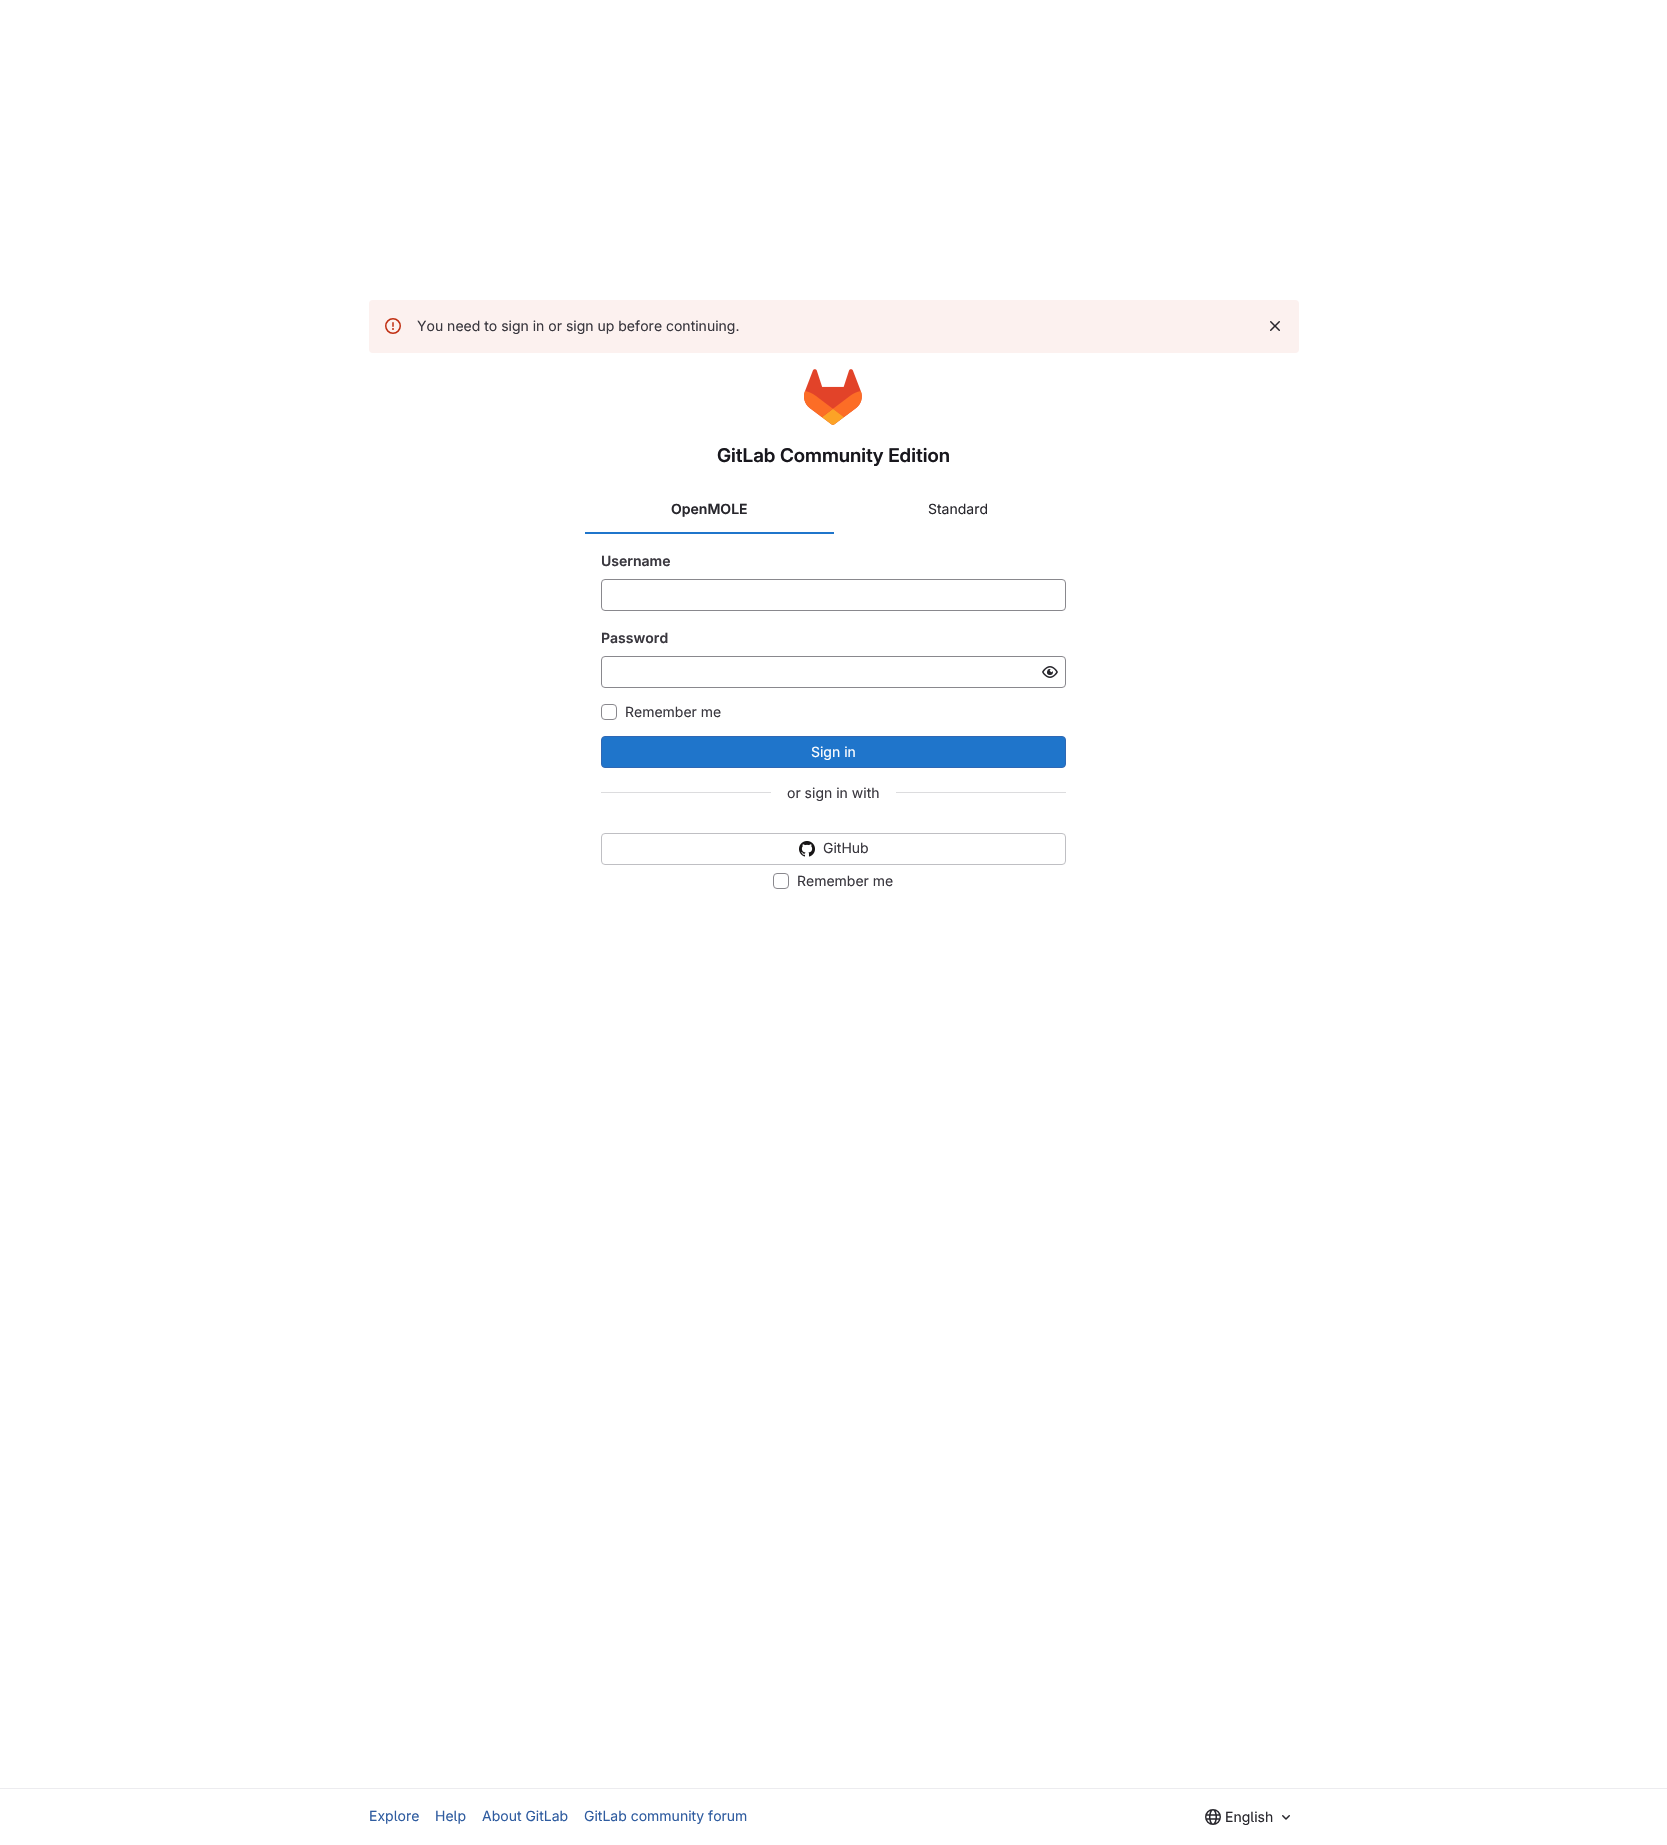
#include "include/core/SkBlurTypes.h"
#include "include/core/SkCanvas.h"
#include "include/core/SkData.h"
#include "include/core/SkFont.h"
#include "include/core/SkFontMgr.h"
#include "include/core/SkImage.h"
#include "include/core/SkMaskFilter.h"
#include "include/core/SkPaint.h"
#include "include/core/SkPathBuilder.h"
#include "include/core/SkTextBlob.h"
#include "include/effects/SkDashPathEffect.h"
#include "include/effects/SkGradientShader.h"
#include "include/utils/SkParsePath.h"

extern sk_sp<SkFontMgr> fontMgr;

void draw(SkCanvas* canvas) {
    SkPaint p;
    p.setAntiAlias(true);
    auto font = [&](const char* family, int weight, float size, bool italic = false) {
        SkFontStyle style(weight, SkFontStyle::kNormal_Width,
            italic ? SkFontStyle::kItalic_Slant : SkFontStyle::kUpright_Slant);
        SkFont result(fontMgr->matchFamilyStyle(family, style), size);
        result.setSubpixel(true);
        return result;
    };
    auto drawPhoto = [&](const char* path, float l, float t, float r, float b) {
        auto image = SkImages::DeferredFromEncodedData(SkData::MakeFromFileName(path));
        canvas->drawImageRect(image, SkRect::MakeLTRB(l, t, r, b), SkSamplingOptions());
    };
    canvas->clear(0xFFFFFFFF);
    p.setColor(0xFFFCF1EF);
    canvas->drawRoundRect(SkRect::MakeLTRB(369, 300, 1299, 353), 4, 4, p);
    drawPhoto("media/1.png", 385, 318, 401, 334);
    auto font1 = font("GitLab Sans", 400, 14);
    p.setColor(0xFF3A383F);
    canvas->drawString("You need to sign in or sign up before continuing.", 417, 331, font1, p);
    drawPhoto("media/2.png", 1270, 321, 1280, 331);
    drawPhoto("media/3.png", 804, 369, 862, 425);
    auto font2 = font("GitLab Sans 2", 600, 19);
    p.setColor(0xFF18171D);
    canvas->drawString("GitLab Community Edition", 717, 462, font2, p);
    auto font3 = font("GitLab Sans", 600, 14);
    p.setColor(0xFF28272D);
    canvas->drawString("OpenMOLE", 671, 514, font3, p);
    p.setColor(0xFF1F75CB);
    canvas->drawRect(SkRect::MakeLTRB(585, 532, 834, 534), p);
    p.setColor(0xFF28272D);
    canvas->drawString("Standard", 928, 514, font1, p);
    p.setColor(0xFF3A383F);
    canvas->drawString("Username", 601, 566, font3, p);
    p.setStyle(SkPaint::kStroke_Style);
    p.setStrokeWidth(1);
    p.setColor(0xFF89888D);
    canvas->drawRoundRect(SkRect::MakeLTRB(601.5f, 579.5f, 1065.5f, 610.5f), 3.5f, 3.5f, p);
    p.setStyle(SkPaint::kFill_Style);
    p.setColor(0xFF3A383F);
    canvas->drawString("Password", 601, 643, font3, p);
    p.setStyle(SkPaint::kStroke_Style);
    p.setColor(0xFF89888D);
    canvas->drawRoundRect(SkRect::MakeLTRB(601.5f, 656.5f, 1065.5f, 687.5f), 3.5f, 3.5f, p);
    drawPhoto("media/4.png", 1042, 666, 1058, 678);
    canvas->drawRoundRect(SkRect::MakeLTRB(601.5f, 704.5f, 616.5f, 719.5f), 3.5f, 3.5f, p);
    p.setStyle(SkPaint::kFill_Style);
    p.setColor(0xFF3A383F);
    canvas->drawString("Remember me", 625, 717, font1, p);
    p.setColor(0xFF1F75CB);
    canvas->drawRoundRect(SkRect::MakeLTRB(601.5f, 736.5f, 1065.5f, 767.5f), 3.5f, 3.5f, p);
    p.setStyle(SkPaint::kStroke_Style);
    p.setColor(0xFF2F68B4);
    canvas->drawRoundRect(SkRect::MakeLTRB(601.5f, 736.5f, 1065.5f, 767.5f), 3.5f, 3.5f, p);
    p.setStyle(SkPaint::kFill_Style);
    p.setColor(0xFFFFFFFF);
    canvas->drawString("Sign in", 811, 757, font1, p);
    p.setColor(0xFFDCDCDE);
    canvas->drawRect(SkRect::MakeLTRB(601, 792, 771, 793), p);
    p.setColor(0xFF3A383F);
    canvas->drawString("or sign in with", 787, 798, font1, p);
    p.setColor(0xFFDCDCDE);
    canvas->drawRect(SkRect::MakeLTRB(896, 792, 1066, 793), p);
    p.setStyle(SkPaint::kStroke_Style);
    p.setColor(0xFFBFBFC3);
    canvas->drawRoundRect(SkRect::MakeLTRB(601.5f, 833.5f, 1065.5f, 864.5f), 3.5f, 3.5f, p);
    drawPhoto("media/5.png", 799, 841, 815, 857);
    p.setStyle(SkPaint::kFill_Style);
    p.setColor(0xFF3A383F);
    canvas->drawString("GitHub", 823, 853, font1, p);
    p.setStyle(SkPaint::kStroke_Style);
    p.setColor(0xFF89888D);
    canvas->drawRoundRect(SkRect::MakeLTRB(773.5f, 873.5f, 788.5f, 888.5f), 3.5f, 3.5f, p);
    p.setStyle(SkPaint::kFill_Style);
    p.setColor(0xFF3A383F);
    canvas->drawString("Remember me", 797, 886, font1, p);
    p.setColor(0xFFECECEF);
    canvas->drawRect(SkRect::MakeLTRB(0, 1788, 1667, 1789), p);
    p.setColor(0xFF2F5CA0);
    {
        const struct { const char* s; float x, y; } items[] = {
            {"Explore", 369, 1821},
            {"Help", 435, 1821},
            {"About GitLab", 482, 1821},
            {"GitLab community forum", 584, 1821},
        };
        for (auto [s, x, y] : items) {
            canvas->drawString(s, x, y, font1, p);
        }
    }
    drawPhoto("media/6.png", 1205, 1809, 1221, 1825);
    p.setColor(0xFF28272D);
    canvas->drawString("English", 1225, 1822, font1, p);
    drawPhoto("media/7.png", 1282, 1815, 1290, 1820);
}
